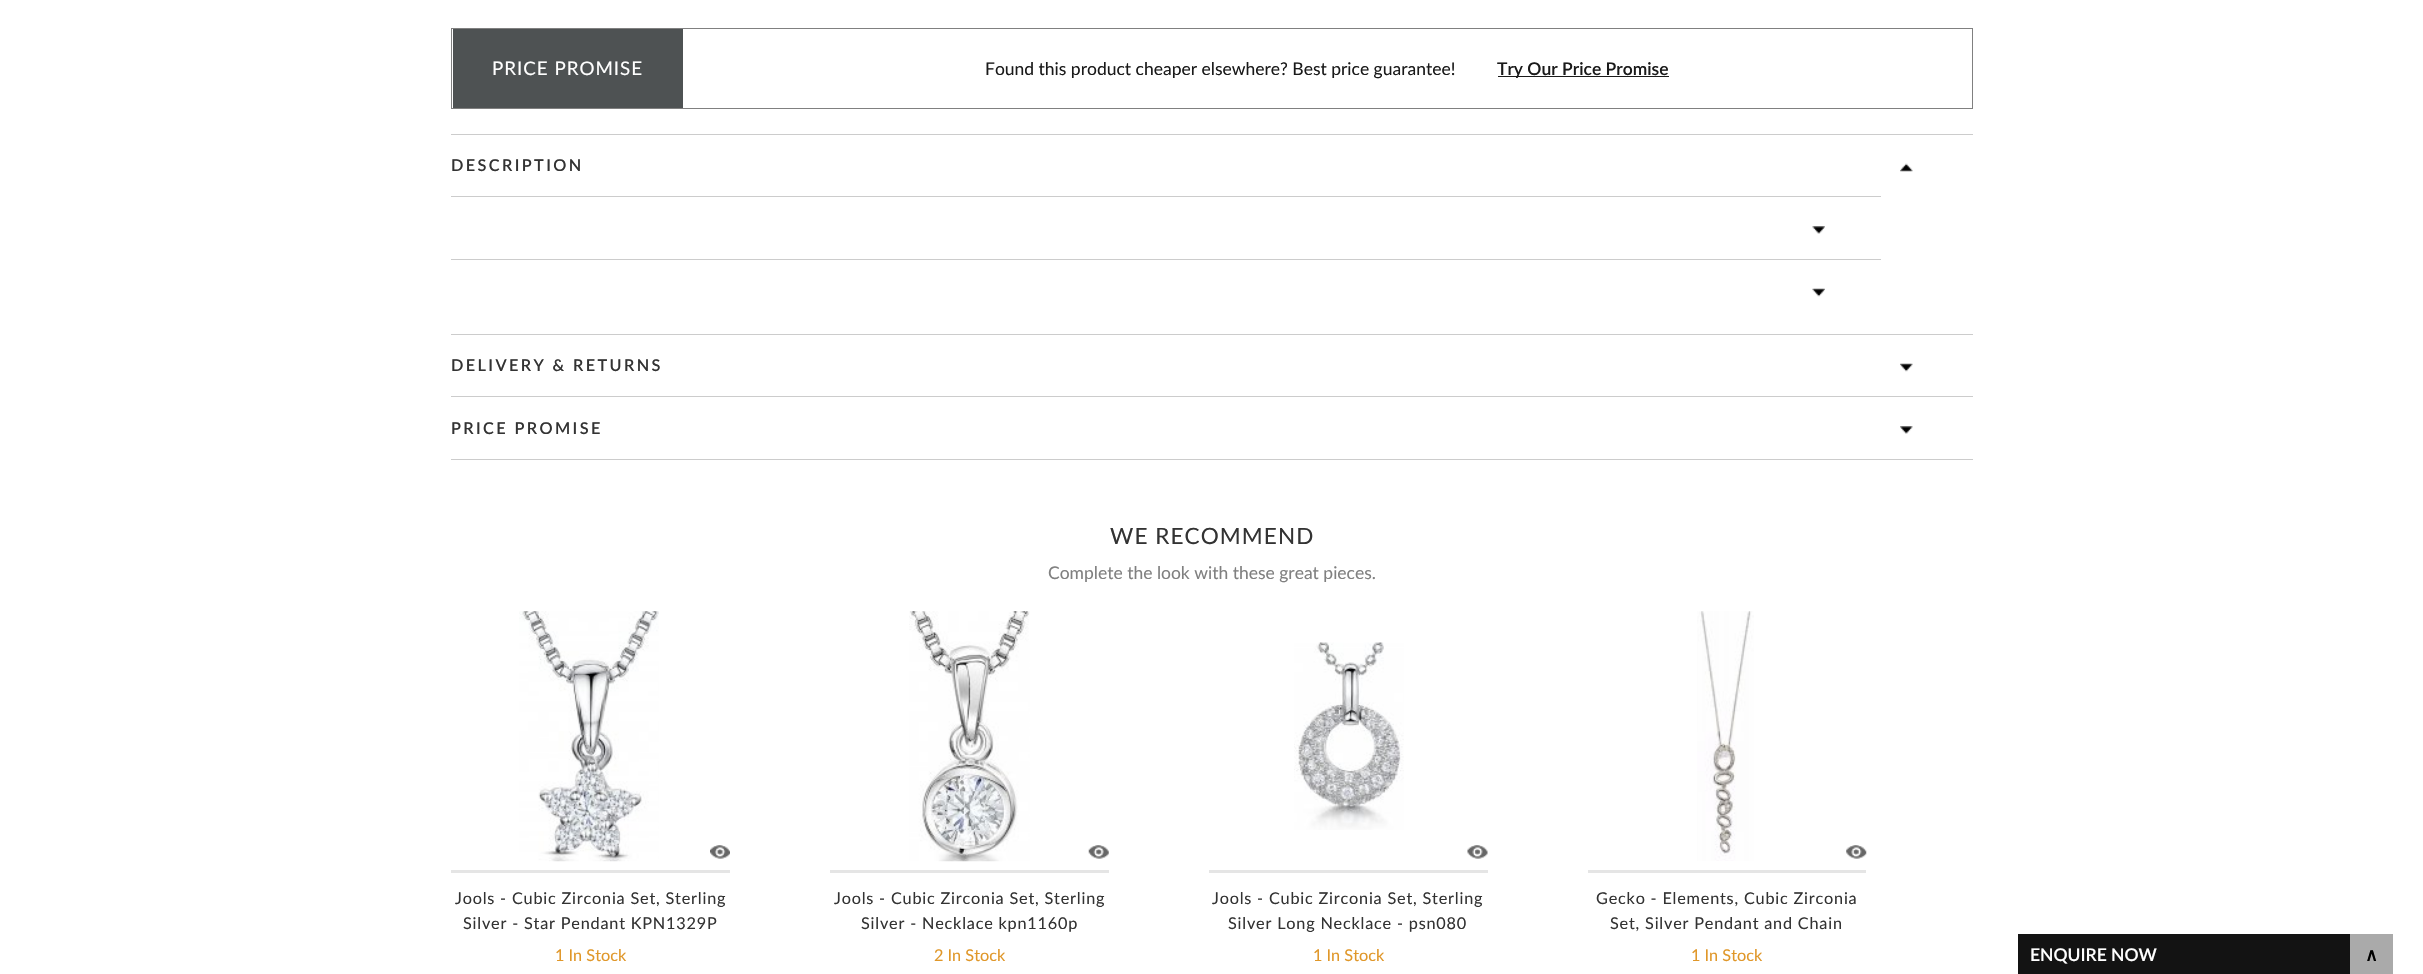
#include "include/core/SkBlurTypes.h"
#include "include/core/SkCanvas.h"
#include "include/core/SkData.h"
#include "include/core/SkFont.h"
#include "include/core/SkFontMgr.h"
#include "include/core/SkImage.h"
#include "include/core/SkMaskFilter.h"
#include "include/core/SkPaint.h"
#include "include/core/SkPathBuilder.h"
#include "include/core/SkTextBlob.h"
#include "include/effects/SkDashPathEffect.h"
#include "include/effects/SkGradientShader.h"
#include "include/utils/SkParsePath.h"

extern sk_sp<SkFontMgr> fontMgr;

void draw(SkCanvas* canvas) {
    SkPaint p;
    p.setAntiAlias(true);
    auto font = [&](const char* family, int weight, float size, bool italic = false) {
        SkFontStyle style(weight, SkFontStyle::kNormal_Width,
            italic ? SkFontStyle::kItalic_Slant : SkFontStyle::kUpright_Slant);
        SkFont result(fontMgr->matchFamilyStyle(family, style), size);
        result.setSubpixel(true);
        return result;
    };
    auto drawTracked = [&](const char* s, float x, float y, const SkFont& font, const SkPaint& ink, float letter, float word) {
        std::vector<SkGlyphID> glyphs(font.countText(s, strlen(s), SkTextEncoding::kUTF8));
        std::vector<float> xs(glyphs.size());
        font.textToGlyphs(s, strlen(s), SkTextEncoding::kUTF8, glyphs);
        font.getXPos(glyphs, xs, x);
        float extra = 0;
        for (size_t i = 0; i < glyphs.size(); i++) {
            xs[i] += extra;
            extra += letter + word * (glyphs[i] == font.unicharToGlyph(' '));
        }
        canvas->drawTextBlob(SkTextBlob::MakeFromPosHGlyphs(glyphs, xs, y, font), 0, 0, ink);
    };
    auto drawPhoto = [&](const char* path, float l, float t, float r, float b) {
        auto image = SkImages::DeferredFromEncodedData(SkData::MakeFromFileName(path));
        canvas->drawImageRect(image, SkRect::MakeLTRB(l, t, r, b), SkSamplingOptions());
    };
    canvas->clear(0xFFFFFFFF);
    p.setStyle(SkPaint::kStroke_Style);
    p.setStrokeWidth(1);
    p.setColor(0xFF808080);
    canvas->drawRect(SkRect::MakeLTRB(451.5f, 28.5f, 1972.5f, 108.5f), p);
    p.setStyle(SkPaint::kFill_Style);
    p.setColor(0xFF4E5253);
    canvas->drawRect(SkRect::MakeLTRB(453, 29, 683, 108), p);
    auto font1 = font("Lato", 400, 18.75f);
    p.setColor(0xFFFFFFFF);
    drawTracked("PRICE PROMISE", 492, 75, font1, p, 1, 0);
    auto font2 = font("Lato", 400, 17.5f);
    p.setColor(0xFF1A1A1A);
    canvas->drawString("Found this product cheaper elsewhere? Best price guarantee!", 985, 75, font2, p);
    canvas->drawRect(SkRect::MakeLTRB(1498, 76, 1669, 77), p);
    auto font3 = font("Lato", 600, 17.5f);
    canvas->drawString("Try Our Price Promise", 1497, 75, font3, p);
    p.setColor(0xFFCCCCCC);
    canvas->drawRect(SkRect::MakeLTRB(451, 459, 1973, 460), p);
    drawPhoto("media/1.png", 1900, 163, 1913, 172);
    canvas->drawRect(SkRect::MakeLTRB(451, 134, 1973, 135), p);
    auto font4 = font("Lato", 600, 16.25f);
    p.setColor(0xFF333333);
    drawTracked("DESCRIPTION", 451, 171, font4, p, 2.4f, 0);
    drawPhoto("media/2.png", 1812, 226, 1825, 234);
    p.setColor(0xFFCCCCCC);
    canvas->drawRect(SkRect::MakeLTRB(451, 196, 1881, 197), p);
    drawPhoto("media/3.png", 1812, 288, 1825, 297);
    canvas->drawRect(SkRect::MakeLTRB(451, 259, 1881, 260), p);
    drawPhoto("media/4.png", 1900, 363, 1913, 372);
    canvas->drawRect(SkRect::MakeLTRB(451, 334, 1973, 335), p);
    p.setColor(0xFF333333);
    drawTracked("DELIVERY & RETURNS", 451, 371, font4, p, 2.4f, 0);
    drawPhoto("media/5.png", 1900, 426, 1913, 434);
    p.setColor(0xFFCCCCCC);
    canvas->drawRect(SkRect::MakeLTRB(451, 396, 1973, 397), p);
    p.setColor(0xFF333333);
    drawTracked("PRICE PROMISE", 451, 434, font4, p, 2.4f, 0);
    auto font5 = font("Lato", 400, 22.5f);
    drawTracked("WE RECOMMEND", 1110, 544, font5, p, 1.1f, 0);
    p.setColor(0xFF808080);
    canvas->drawString("Complete the look with these great pieces.", 1048, 579, font2, p);
    p.setColor(0xFFE5E5E5);
    canvas->drawRect(SkRect::MakeLTRB(451, 870, 730, 873), p);
    drawPhoto("media/6.png", 519, 611, 659, 862);
    drawPhoto("media/7.png", 710, 845, 730, 859);
    auto font6 = font("Lato", 400, 16.25f);
    p.setColor(0xFF333333);
    drawTracked("Jools - Cubic Zirconia Set, Sterling", 455, 904, font6, p, 0.8f, 0);
    drawTracked("Silver - Star Pendant KPN1329P", 463, 929, font6, p, 0.8f, 0);
    p.setColor(0xFFE09729);
    canvas->drawString("1 In Stock", 555, 961, font6, p);
    p.setColor(0xFFE5E5E5);
    canvas->drawRect(SkRect::MakeLTRB(830, 870, 1109, 873), p);
    drawPhoto("media/8.png", 909, 611, 1030, 862);
    drawPhoto("media/9.png", 1088, 845, 1109, 859);
    p.setColor(0xFF333333);
    drawTracked("Jools - Cubic Zirconia Set, Sterling", 834, 904, font6, p, 0.8f, 0);
    drawTracked("Silver - Necklace kpn1160p", 861, 929, font6, p, 0.8f, 0);
    p.setColor(0xFFE09729);
    canvas->drawString("2 In Stock", 934, 961, font6, p);
    p.setColor(0xFFE5E5E5);
    canvas->drawRect(SkRect::MakeLTRB(1209, 870, 1488, 873), p);
    drawPhoto("media/10.png", 1294, 642, 1404, 830);
    drawPhoto("media/11.png", 1467, 845, 1488, 859);
    p.setColor(0xFF333333);
    drawTracked("Jools - Cubic Zirconia Set, Sterling", 1212, 904, font6, p, 0.8f, 0);
    drawTracked("Silver Long Necklace - psn080", 1228, 929, font6, p, 0.8f, 0);
    p.setColor(0xFFE09729);
    canvas->drawString("1 In Stock", 1313, 961, font6, p);
    p.setColor(0xFFE5E5E5);
    canvas->drawRect(SkRect::MakeLTRB(1588, 870, 1866, 873), p);
    drawPhoto("media/12.png", 1697, 611, 1754, 861);
    drawPhoto("media/13.png", 1846, 845, 1867, 859);
    p.setColor(0xFF333333);
    drawTracked("Gecko - Elements, Cubic Zirconia", 1596, 904, font6, p, 0.8f, 0);
    drawTracked("Set, Silver Pendant and Chain", 1610, 929, font6, p, 0.8f, 0);
    p.setColor(0xFFE09729);
    canvas->drawString("1 In Stock", 1691, 961, font6, p);
    p.setColor(0xFF131313);
    canvas->drawRect(SkRect::MakeLTRB(2018, 934, 2350, 974), p);
    p.setColor(0xFFFFFFFF);
    canvas->drawString("ENQUIRE NOW", 2030, 961, font3, p);
    p.setColor(0xFFAAAAAA);
    canvas->drawRect(SkRect::MakeLTRB(2350, 934, 2393, 974), p);
    auto font7 = font("DejaVu Sans", 700, 17.5f);
    p.setColor(0xFF000000);
    canvas->drawString("∧", 2365, 961, font7, p);
}
